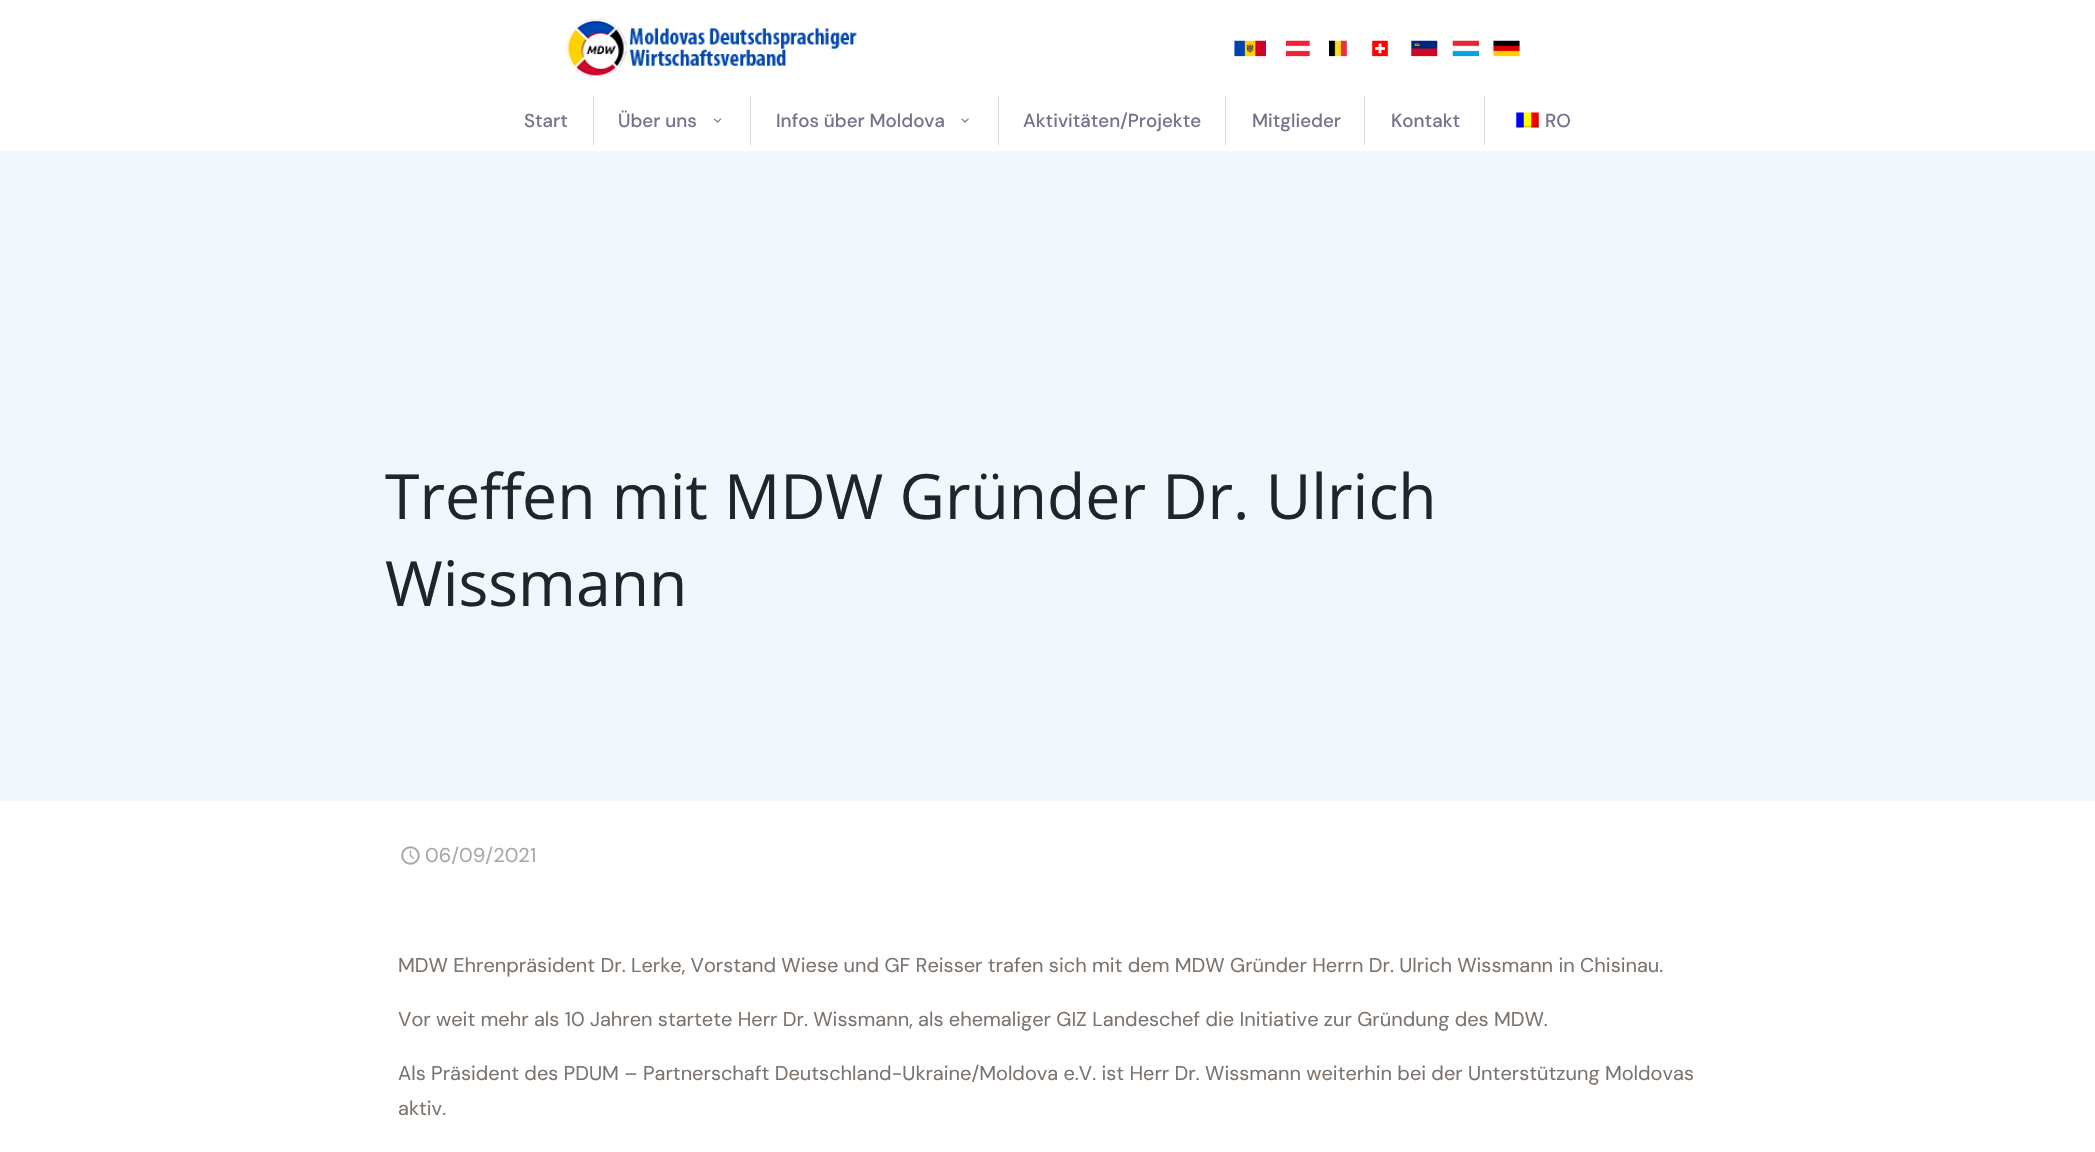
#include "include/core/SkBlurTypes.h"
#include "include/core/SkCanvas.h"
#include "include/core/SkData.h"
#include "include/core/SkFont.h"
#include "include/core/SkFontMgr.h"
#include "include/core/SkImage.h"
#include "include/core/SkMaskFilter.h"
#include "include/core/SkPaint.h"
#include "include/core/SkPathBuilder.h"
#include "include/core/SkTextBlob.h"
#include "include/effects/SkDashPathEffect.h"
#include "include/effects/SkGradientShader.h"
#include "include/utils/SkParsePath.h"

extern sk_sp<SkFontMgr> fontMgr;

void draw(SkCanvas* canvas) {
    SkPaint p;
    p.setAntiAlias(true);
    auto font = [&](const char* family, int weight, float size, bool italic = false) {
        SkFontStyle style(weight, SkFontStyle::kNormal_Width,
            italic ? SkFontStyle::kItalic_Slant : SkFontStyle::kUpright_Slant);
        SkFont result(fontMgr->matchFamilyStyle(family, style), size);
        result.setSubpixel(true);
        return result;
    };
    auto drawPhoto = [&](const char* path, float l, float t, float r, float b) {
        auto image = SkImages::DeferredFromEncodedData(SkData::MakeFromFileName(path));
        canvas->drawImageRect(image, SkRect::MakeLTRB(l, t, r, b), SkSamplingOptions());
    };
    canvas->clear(0xFFFFFFFF);
    drawPhoto("media/1.png", 566, 18, 857, 78);
    drawPhoto("media/2.png", 1234, 40, 1520, 57);
    auto font1 = font("DM Sans", 500, 18.75f);
    p.setColor(0xFF73748C);
    canvas->drawString("Start", 524, 127, font1, p);
    p.setColor(0xFFD9DADF);
    canvas->drawRect(SkRect::MakeLTRB(593, 96, 594, 145), p);
    p.setColor(0xFF73748C);
    canvas->drawString("Über uns", 618, 127, font1, p);
    drawPhoto("media/3.png", 713, 118, 722, 123);
    p.setColor(0xFFD9DADF);
    canvas->drawRect(SkRect::MakeLTRB(750, 96, 751, 145), p);
    p.setColor(0xFF73748C);
    canvas->drawString("Infos über Moldova", 776, 127, font1, p);
    drawPhoto("media/4.png", 961, 118, 969, 123);
    p.setColor(0xFFD9DADF);
    canvas->drawRect(SkRect::MakeLTRB(998, 96, 999, 145), p);
    p.setColor(0xFF73748C);
    canvas->drawString("Aktivitäten/Projekte", 1023, 127, font1, p);
    p.setColor(0xFFD9DADF);
    canvas->drawRect(SkRect::MakeLTRB(1225, 96, 1226, 145), p);
    p.setColor(0xFF73748C);
    canvas->drawString("Mitglieder", 1252, 127, font1, p);
    p.setColor(0xFFD9DADF);
    canvas->drawRect(SkRect::MakeLTRB(1364, 96, 1365, 145), p);
    p.setColor(0xFF73748C);
    canvas->drawString("Kontakt", 1391, 127, font1, p);
    p.setColor(0xFFD9DADF);
    canvas->drawRect(SkRect::MakeLTRB(1484, 96, 1485, 145), p);
    drawPhoto("media/5.png", 1516, 112, 1539, 128);
    p.setColor(0xFF73748C);
    canvas->drawString("RO", 1545, 127, font1, p);
    p.setColor(0xFFF0F8FE);
    canvas->drawRect(SkRect::MakeLTRB(0, 151, 2095, 801), p);
    auto font2 = font("Open Sans", 400, 62.5f);
    p.setColor(0xFF1D262D);
    canvas->drawString("Treffen mit MDW Gründer Dr. Ulrich", 385, 519, font2, p);
    canvas->drawString("Wissmann", 385, 606, font2, p);
    drawPhoto("media/6.png", 401, 846, 420, 865);
    auto font3 = font("DM Sans", 400, 20);
    p.setColor(0xFFA8A8A8);
    canvas->drawString("06/09/2021", 425, 862, font3, p);
    p.setColor(0xFF7D736D);
    {
        const struct { const char* s; float x, y; } items[] = {
            {"MDW Ehrenpräsident Dr. Lerke, Vorstand Wiese und GF Reisser trafen sich mit dem MDW Gründer Herrn Dr. Ulrich Wissmann in Chisinau.", 398, 972},
            {"Vor weit mehr als 10 Jahren startete Herr Dr. Wissmann, als ehemaliger GIZ Landeschef die Initiative zur Gründung des MDW.", 398, 1026},
            {"Als Präsident des PDUM – Partnerschaft Deutschland-Ukraine/Moldova e.V. ist Herr Dr. Wissmann weiterhin bei der Unterstützung Moldovas", 398, 1080},
            {"aktiv.", 398, 1115},
        };
        for (auto [s, x, y] : items) {
            canvas->drawString(s, x, y, font3, p);
        }
    }
}
